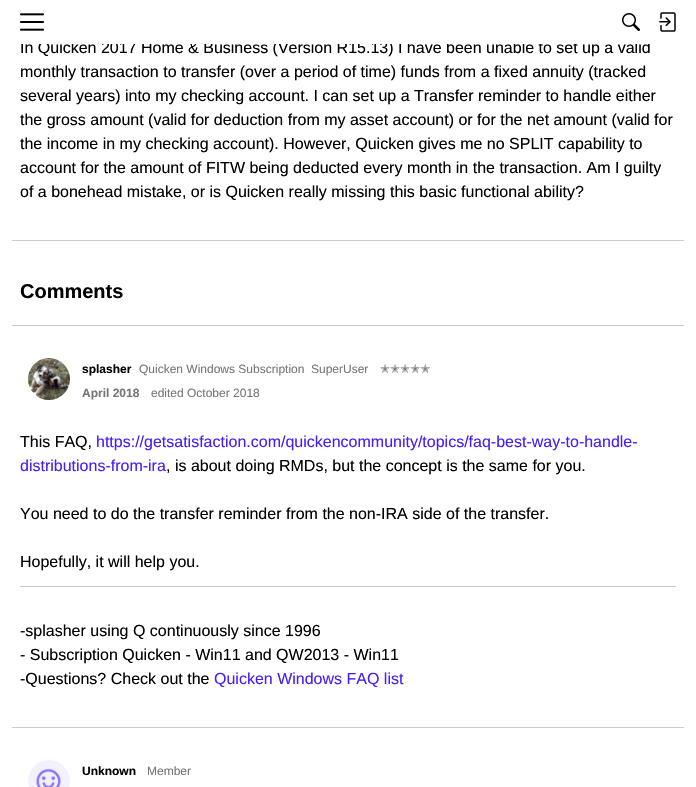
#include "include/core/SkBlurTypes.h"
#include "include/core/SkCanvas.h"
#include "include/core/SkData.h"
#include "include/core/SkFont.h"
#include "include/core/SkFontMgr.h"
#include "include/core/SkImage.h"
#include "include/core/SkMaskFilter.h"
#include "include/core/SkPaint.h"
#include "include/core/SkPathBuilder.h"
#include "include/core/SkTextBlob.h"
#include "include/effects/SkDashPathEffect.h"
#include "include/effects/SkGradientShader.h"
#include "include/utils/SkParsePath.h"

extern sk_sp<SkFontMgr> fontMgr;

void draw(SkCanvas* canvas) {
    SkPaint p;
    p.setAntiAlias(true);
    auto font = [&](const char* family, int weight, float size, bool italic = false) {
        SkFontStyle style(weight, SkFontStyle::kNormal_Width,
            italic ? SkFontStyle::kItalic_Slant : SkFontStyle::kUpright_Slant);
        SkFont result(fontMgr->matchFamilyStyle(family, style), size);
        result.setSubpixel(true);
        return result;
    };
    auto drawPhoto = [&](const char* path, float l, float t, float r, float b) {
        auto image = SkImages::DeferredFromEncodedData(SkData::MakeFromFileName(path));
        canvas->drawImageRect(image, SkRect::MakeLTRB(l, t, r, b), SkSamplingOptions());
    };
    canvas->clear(0xFFFFFFFF);
    drawPhoto("media/1.png", 20, 13, 44, 31);
    drawPhoto("media/2.png", 622, 13, 640, 31);
    drawPhoto("media/3.png", 659, 12, 676, 32);
    auto font1 = font("Liberation Sans", 400, 16);
    p.setColor(0xFF000000);
    canvas->drawString("In Quicken 2017 Home & Business (Version R15.13) I have been unable to set up a valid", 20, 53, font1, p);
    p.setColor(0xFFFFFFFF);
    canvas->drawRect(SkRect::MakeLTRB(21, 41, 650, 44), p);
    p.setColor(0xFF000000);
    {
        const struct { const char* s; float x, y; } items[] = {
            {"monthly transaction to transfer (over a period of time) funds from a fixed annuity (tracked", 20, 77},
            {"several years) into my checking account. I can set up a Transfer reminder to handle either", 20, 101},
            {"the gross amount (valid for deduction from my asset account) or for the net amount (valid for", 20, 125},
            {"the income in my checking account). However, Quicken gives me no SPLIT capability to", 20, 149},
            {"account for the amount of FITW being deducted every month in the transaction. Am I guilty", 20, 173},
            {"of a bonehead mistake, or is Quicken really missing this basic functional ability?", 20, 197},
        };
        for (auto [s, x, y] : items) {
            canvas->drawString(s, x, y, font1, p);
        }
    }
    p.setColor(0xFFCCCCCC);
    canvas->drawRect(SkRect::MakeLTRB(12, 240, 684, 241), p);
    auto font2 = font("Liberation Sans", 700, 20);
    p.setColor(0xFF000000);
    canvas->drawString("Comments", 20, 298, font2, p);
    p.setColor(0xFFCCCCCC);
    canvas->drawRect(SkRect::MakeLTRB(12, 325, 684, 326), p);
    drawPhoto("media/4.png", 28, 358, 70, 400);
    auto font3 = font("Liberation Sans", 700, 12);
    p.setColor(0xFF000000);
    canvas->drawString("splasher", 82, 373, font3, p);
    auto font4 = font("Liberation Sans", 400, 12);
    p.setColor(0xFF767676);
    canvas->drawString("Quicken Windows Subscription", 139, 373, font4, p);
    canvas->drawString("SuperUser", 311, 373, font4, p);
    auto font5 = font("DejaVu Sans", 400, 12);
    canvas->drawString("✭✭✭✭✭", 380, 373, font5, p);
    canvas->drawString("April 2018", 82, 397, font3, p);
    canvas->drawString("edited October 2018", 151, 397, font4, p);
    p.setColor(0xFF000000);
    canvas->drawString("This FAQ,", 20, 447, font1, p);
    p.setColor(0xFF471CFF);
    canvas->drawString("https://getsatisfaction.com/quickencommunity/topics/faq-best-way-to-handle-", 96, 447, font1, p);
    canvas->drawString("distributions-from-ira", 20, 471, font1, p);
    p.setColor(0xFF000000);
    {
        const struct { const char* s; float x, y; } items[] = {
            {", is about doing RMDs, but the concept is the same for you.", 166, 471},
            {"You need to do the transfer reminder from the non-IRA side of the transfer.", 20, 519},
            {"Hopefully, it will help you.", 20, 567},
        };
        for (auto [s, x, y] : items) {
            canvas->drawString(s, x, y, font1, p);
        }
    }
    p.setColor(0xFFCCCCCC);
    canvas->drawRect(SkRect::MakeLTRB(20, 586, 676, 587), p);
    p.setColor(0xFF000000);
    {
        const struct { const char* s; float x, y; } items[] = {
            {"-splasher using Q continuously since 1996", 20, 636},
            {"- Subscription Quicken - Win11 and QW2013 - Win11", 20, 660},
            {"-Questions? Check out the", 20, 684},
        };
        for (auto [s, x, y] : items) {
            canvas->drawString(s, x, y, font1, p);
        }
    }
    p.setColor(0xFF471CFF);
    canvas->drawString("Quicken Windows FAQ list", 214, 684, font1, p);
    p.setColor(0xFFCCCCCC);
    canvas->drawRect(SkRect::MakeLTRB(12, 727, 684, 728), p);
    drawPhoto("media/5.png", 28, 760, 70, 787);
    p.setColor(0xFF000000);
    canvas->drawString("Unknown", 82, 775, font3, p);
    p.setColor(0xFF767676);
    canvas->drawString("Member", 147, 775, font4, p);
}
